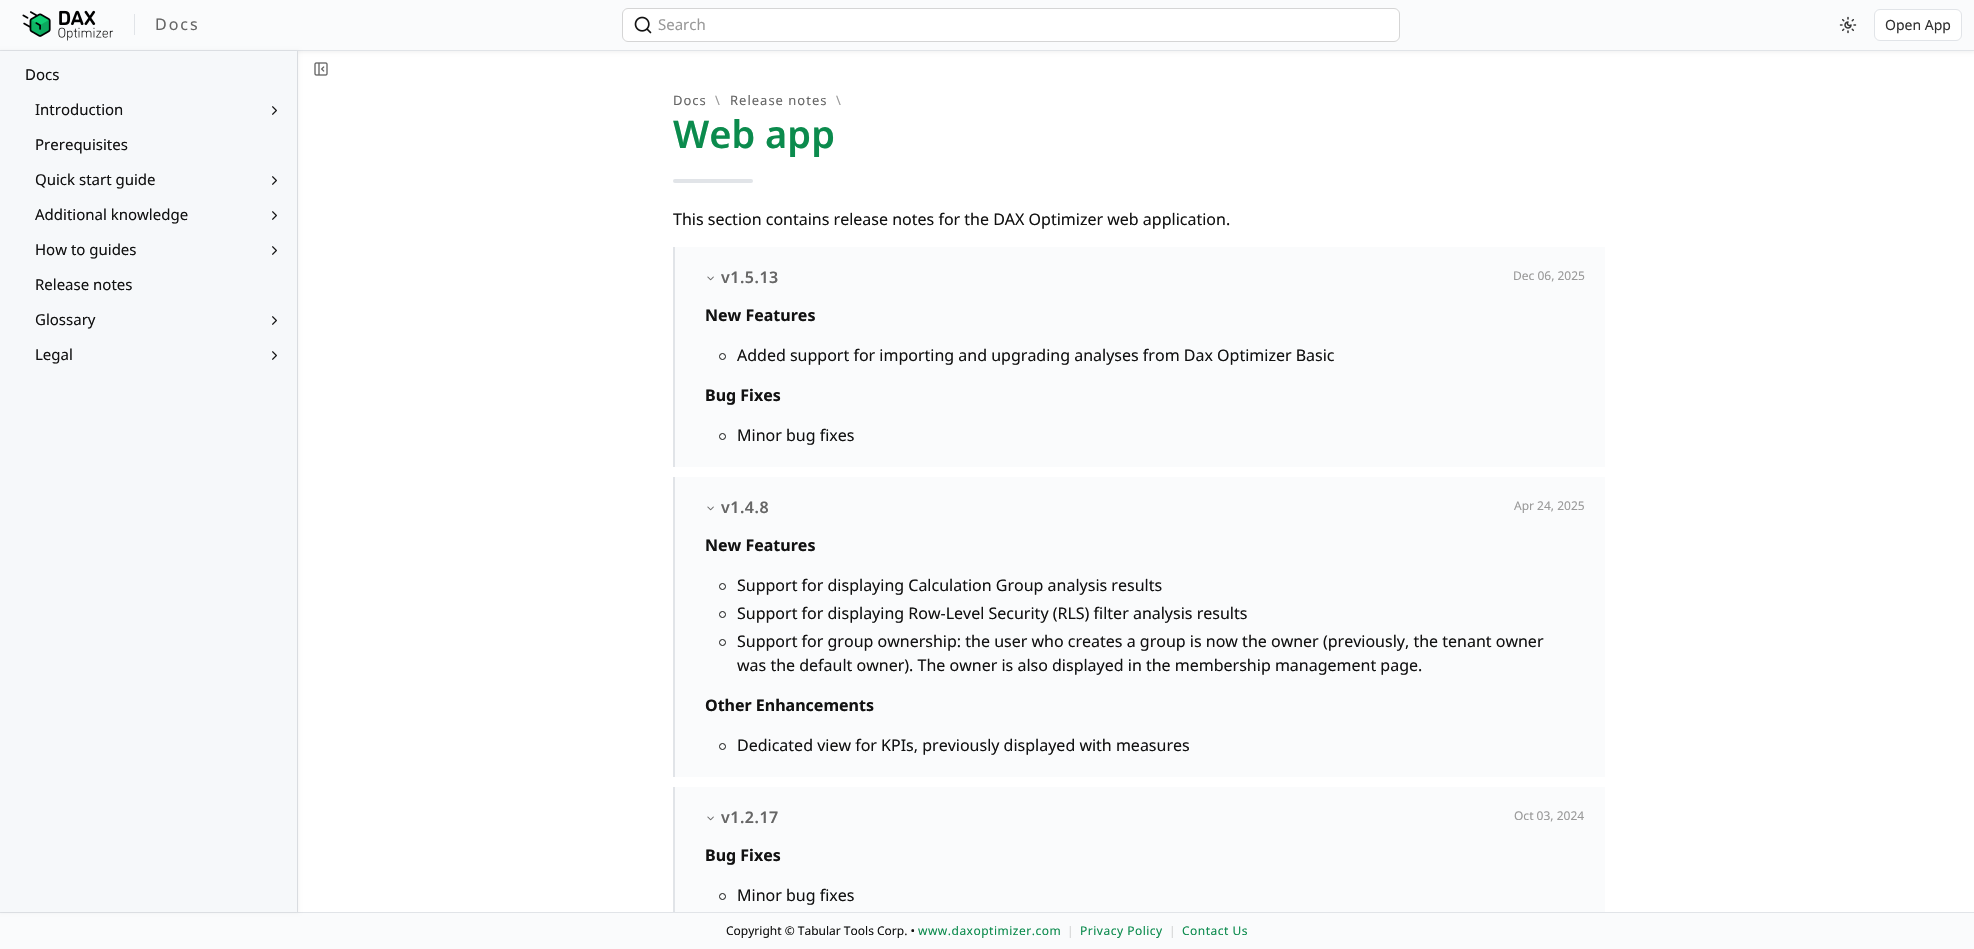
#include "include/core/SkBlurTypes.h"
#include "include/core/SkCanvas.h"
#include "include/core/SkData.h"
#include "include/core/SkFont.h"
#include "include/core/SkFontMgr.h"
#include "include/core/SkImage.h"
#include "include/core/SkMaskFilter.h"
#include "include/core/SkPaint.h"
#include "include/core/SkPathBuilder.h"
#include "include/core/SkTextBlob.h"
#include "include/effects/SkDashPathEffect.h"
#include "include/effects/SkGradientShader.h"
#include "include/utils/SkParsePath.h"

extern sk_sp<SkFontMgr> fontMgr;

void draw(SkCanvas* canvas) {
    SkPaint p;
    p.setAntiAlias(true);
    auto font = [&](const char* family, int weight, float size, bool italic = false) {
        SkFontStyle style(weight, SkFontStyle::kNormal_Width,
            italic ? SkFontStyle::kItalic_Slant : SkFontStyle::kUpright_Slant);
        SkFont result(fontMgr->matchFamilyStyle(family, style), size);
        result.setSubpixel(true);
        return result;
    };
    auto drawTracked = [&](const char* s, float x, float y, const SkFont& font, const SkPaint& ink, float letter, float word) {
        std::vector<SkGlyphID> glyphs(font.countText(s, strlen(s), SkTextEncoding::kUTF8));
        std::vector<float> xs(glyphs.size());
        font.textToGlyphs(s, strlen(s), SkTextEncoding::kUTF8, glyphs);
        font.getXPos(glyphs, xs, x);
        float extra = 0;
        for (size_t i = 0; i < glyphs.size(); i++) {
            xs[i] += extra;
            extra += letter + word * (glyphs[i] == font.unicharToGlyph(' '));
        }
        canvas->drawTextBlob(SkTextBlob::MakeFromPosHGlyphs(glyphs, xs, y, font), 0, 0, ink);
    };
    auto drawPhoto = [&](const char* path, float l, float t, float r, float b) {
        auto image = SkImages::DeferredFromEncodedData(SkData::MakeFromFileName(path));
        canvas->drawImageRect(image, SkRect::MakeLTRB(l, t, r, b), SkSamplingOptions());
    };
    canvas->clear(0xFFFFFFFF);
    p.setColor(0x0A000000);
    p.setMaskFilter(SkMaskFilter::MakeBlur(kNormal_SkBlurStyle, 1.5f));
    canvas->drawRect(SkRect::MakeLTRB(-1, 0, 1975, 53), p);
    p.setMaskFilter(nullptr);
    p.setColor(0xFFFAFBFC);
    canvas->drawRect(SkRect::MakeLTRB(0, 0, 1974, 50), p);
    p.setColor(0xFFE1E4E8);
    canvas->drawRect(SkRect::MakeLTRB(0, 50, 1974, 51), p);
    drawPhoto("media/1.png", 22, 10, 114, 41);
    canvas->drawRect(SkRect::MakeLTRB(134, 14, 135, 35), p);
    auto font1 = font("Noto Sans", 400, 16);
    p.setColor(0xFF666666);
    drawTracked("Docs", 155, 30, font1, p, 2, 0);
    p.setColor(0xFFFFFFFF);
    canvas->drawRoundRect(SkRect::MakeLTRB(622.5f, 8.5f, 1399.5f, 41.5f), 5.5f, 5.5f, p);
    p.setStyle(SkPaint::kStroke_Style);
    p.setStrokeWidth(1);
    p.setColor(0xFFD5D5D5);
    canvas->drawRoundRect(SkRect::MakeLTRB(622.5f, 8.5f, 1399.5f, 41.5f), 5.5f, 5.5f, p);
    drawPhoto("media/2.png", 634, 16, 652, 34);
    auto font2 = font("Noto Sans", 400, 15);
    p.setStyle(SkPaint::kFill_Style);
    p.setColor(0xFF999999);
    canvas->drawString("Search", 658, 30, font2, p);
    drawPhoto("media/3.png", 1839, 16, 1857, 34);
    p.setColor(0xFFFFFFFF);
    canvas->drawRoundRect(SkRect::MakeLTRB(1874.5f, 9.5f, 1961.5f, 40.5f), 5.5f, 5.5f, p);
    p.setStyle(SkPaint::kStroke_Style);
    p.setColor(0xFFE1E4E8);
    canvas->drawRoundRect(SkRect::MakeLTRB(1874.5f, 9.5f, 1961.5f, 40.5f), 5.5f, 5.5f, p);
    auto font3 = font("Noto Sans", 400, 14);
    p.setStyle(SkPaint::kFill_Style);
    p.setColor(0xFF333333);
    canvas->drawString("Open App", 1885, 30, font3, p);
    {
        const struct { float l, t, r, b; SkColor color; } items[] = {
            {297, 51, 298, 912, 0xFFE1E4E8},
            {0, 913, 1974, 949, 0xFFFAFBFC},
            {0, 912, 1974, 913, 0xFFE1E4E8},
        };
        for (auto [l, t, r, b, color] : items) {
            p.setColor(color);
            canvas->drawRect(SkRect::MakeLTRB(l, t, r, b), p);
        }
    }
    p.setColor(0x0A000000);
    p.setMaskFilter(SkMaskFilter::MakeBlur(kNormal_SkBlurStyle, 1.5f));
    canvas->drawRect(SkRect::MakeLTRB(0, 50, 299, 913), p);
    p.setMaskFilter(nullptr);
    p.setColor(0xFFF6F8FA);
    canvas->drawRect(SkRect::MakeLTRB(0, 51, 297, 912), p);
    p.setColor(0xFF121212);
    canvas->drawString("Docs", 25, 80, font2, p);
    canvas->drawString("Introduction", 35, 115, font2, p);
    drawPhoto("media/4.png", 272, 106, 277, 115);
    canvas->drawString("Prerequisites", 35, 150, font2, p);
    canvas->drawString("Quick start guide", 35, 185, font2, p);
    drawPhoto("media/4.png", 272, 176, 277, 185);
    canvas->drawString("Additional knowledge", 35, 220, font2, p);
    drawPhoto("media/4.png", 272, 211, 277, 220);
    canvas->drawString("How to guides", 35, 255, font2, p);
    drawPhoto("media/4.png", 272, 246, 277, 255);
    canvas->drawString("Release notes", 35, 290, font2, p);
    canvas->drawString("Glossary", 35, 325, font2, p);
    drawPhoto("media/4.png", 272, 316, 277, 325);
    canvas->drawString("Legal", 35, 360, font2, p);
    drawPhoto("media/4.png", 272, 351, 277, 360);
    drawPhoto("media/5.png", 314, 62, 328, 76);
    auto font4 = font("Noto Sans", 400, 13);
    p.setColor(0xFF666666);
    drawTracked("Docs", 673, 105, font4, p, 1, 0);
    p.setColor(0xFF999999);
    drawTracked("\\", 715, 105, font4, p, 1, 0);
    p.setColor(0xFF666666);
    drawTracked("Release notes", 730, 105, font4, p, 1, 0);
    p.setColor(0xFF999999);
    drawTracked("\\", 836, 105, font4, p, 1, 0);
    auto font5 = font("Noto Sans", 600, 38);
    p.setColor(0xFF0B8B4D);
    canvas->drawString("Web app", 673, 148, font5, p);
    p.setColor(0xFFE1E4E8);
    canvas->drawRoundRect(SkRect::MakeLTRB(673, 179, 753, 183), 2, 2, p);
    p.setColor(0xFF121212);
    canvas->drawString("This section contains release notes for the DAX Optimizer web application.", 673, 225, font1, p);
    p.setColor(0xFFFAFBFC);
    canvas->drawRect(SkRect::MakeLTRB(675, 247, 1605, 467), p);
    p.setColor(0xFFE1E4E8);
    canvas->drawRect(SkRect::MakeLTRB(673, 247, 675, 467), p);
    drawPhoto("media/6.png", 707, 276, 714, 281);
    auto font6 = font("Noto Sans", 600, 16);
    p.setColor(0xFF666666);
    drawTracked("v1.5.13", 721, 283, font6, p, 0.5f, 0);
    auto font7 = font("Noto Sans", 400, 12);
    p.setColor(0xFF999999);
    canvas->drawString("Dec 06, 2025", 1513, 280, font7, p);
    auto font8 = font("Noto Sans", 700, 16);
    p.setColor(0xFF121212);
    canvas->drawString("New Features", 705, 321, font8, p);
    p.setStyle(SkPaint::kStroke_Style);
    canvas->drawCircle(722.5f, 356.5f, 3, p);
    p.setStyle(SkPaint::kFill_Style);
    canvas->drawString("Added support for importing and upgrading analyses from Dax Optimizer Basic", 737, 361, font1, p);
    canvas->drawString("Bug Fixes", 705, 401, font8, p);
    p.setStyle(SkPaint::kStroke_Style);
    canvas->drawCircle(722.5f, 436.5f, 3, p);
    p.setStyle(SkPaint::kFill_Style);
    canvas->drawString("Minor bug fixes", 737, 441, font1, p);
    p.setColor(0xFFFAFBFC);
    canvas->drawRect(SkRect::MakeLTRB(675, 477, 1605, 777), p);
    p.setColor(0xFFE1E4E8);
    canvas->drawRect(SkRect::MakeLTRB(673, 477, 675, 777), p);
    drawPhoto("media/6.png", 707, 506, 714, 511);
    p.setColor(0xFF666666);
    drawTracked("v1.4.8", 721, 513, font6, p, 0.5f, 0);
    p.setColor(0xFF999999);
    canvas->drawString("Apr 24, 2025", 1514, 510, font7, p);
    p.setColor(0xFF121212);
    canvas->drawString("New Features", 705, 551, font8, p);
    p.setStyle(SkPaint::kStroke_Style);
    canvas->drawCircle(722.5f, 586.5f, 3, p);
    p.setStyle(SkPaint::kFill_Style);
    canvas->drawString("Support for displaying Calculation Group analysis results", 737, 591, font1, p);
    p.setStyle(SkPaint::kStroke_Style);
    canvas->drawCircle(722.5f, 614.5f, 3, p);
    p.setStyle(SkPaint::kFill_Style);
    canvas->drawString("Support for displaying Row-Level Security (RLS) filter analysis results", 737, 619, font1, p);
    p.setStyle(SkPaint::kStroke_Style);
    canvas->drawCircle(722.5f, 642.5f, 3, p);
    p.setStyle(SkPaint::kFill_Style);
    canvas->drawString("Support for group ownership: the user who creates a group is now the owner (previously, the tenant owner", 737, 647, font1, p);
    canvas->drawString("was the default owner). The owner is also displayed in the membership management page.", 737, 671, font1, p);
    canvas->drawString("Other Enhancements", 705, 711, font8, p);
    p.setStyle(SkPaint::kStroke_Style);
    canvas->drawCircle(722.5f, 746.5f, 3, p);
    p.setStyle(SkPaint::kFill_Style);
    canvas->drawString("Dedicated view for KPIs, previously displayed with measures", 737, 751, font1, p);
    p.setColor(0xFFFAFBFC);
    canvas->drawRect(SkRect::MakeLTRB(675, 787, 1605, 912), p);
    p.setColor(0xFFE1E4E8);
    canvas->drawRect(SkRect::MakeLTRB(673, 787, 675, 912), p);
    drawPhoto("media/6.png", 707, 816, 714, 821);
    p.setColor(0xFF666666);
    drawTracked("v1.2.17", 721, 823, font6, p, 0.5f, 0);
    p.setColor(0xFF999999);
    canvas->drawString("Oct 03, 2024", 1514, 820, font7, p);
    p.setColor(0xFF121212);
    canvas->drawString("Bug Fixes", 705, 861, font8, p);
    p.setStyle(SkPaint::kStroke_Style);
    canvas->drawCircle(722.5f, 896.5f, 3, p);
    p.setStyle(SkPaint::kFill_Style);
    canvas->drawString("Minor bug fixes", 737, 901, font1, p);
    canvas->drawString("Copyright © Tabular Tools Corp. •", 726, 935, font7, p);
    p.setColor(0xFF0B8B4D);
    drawTracked("www.daxoptimizer.com", 918, 935, font7, p, 0.5f, 0);
    p.setColor(0xFFD5D5D5);
    canvas->drawString("|", 1067, 935, font7, p);
    p.setColor(0xFF0B8B4D);
    drawTracked("Privacy Policy", 1080, 935, font7, p, 0.5f, 0);
    p.setColor(0xFFD5D5D5);
    canvas->drawString("|", 1169, 935, font7, p);
    p.setColor(0xFF0B8B4D);
    drawTracked("Contact Us", 1182, 935, font7, p, 0.5f, 0);
}
